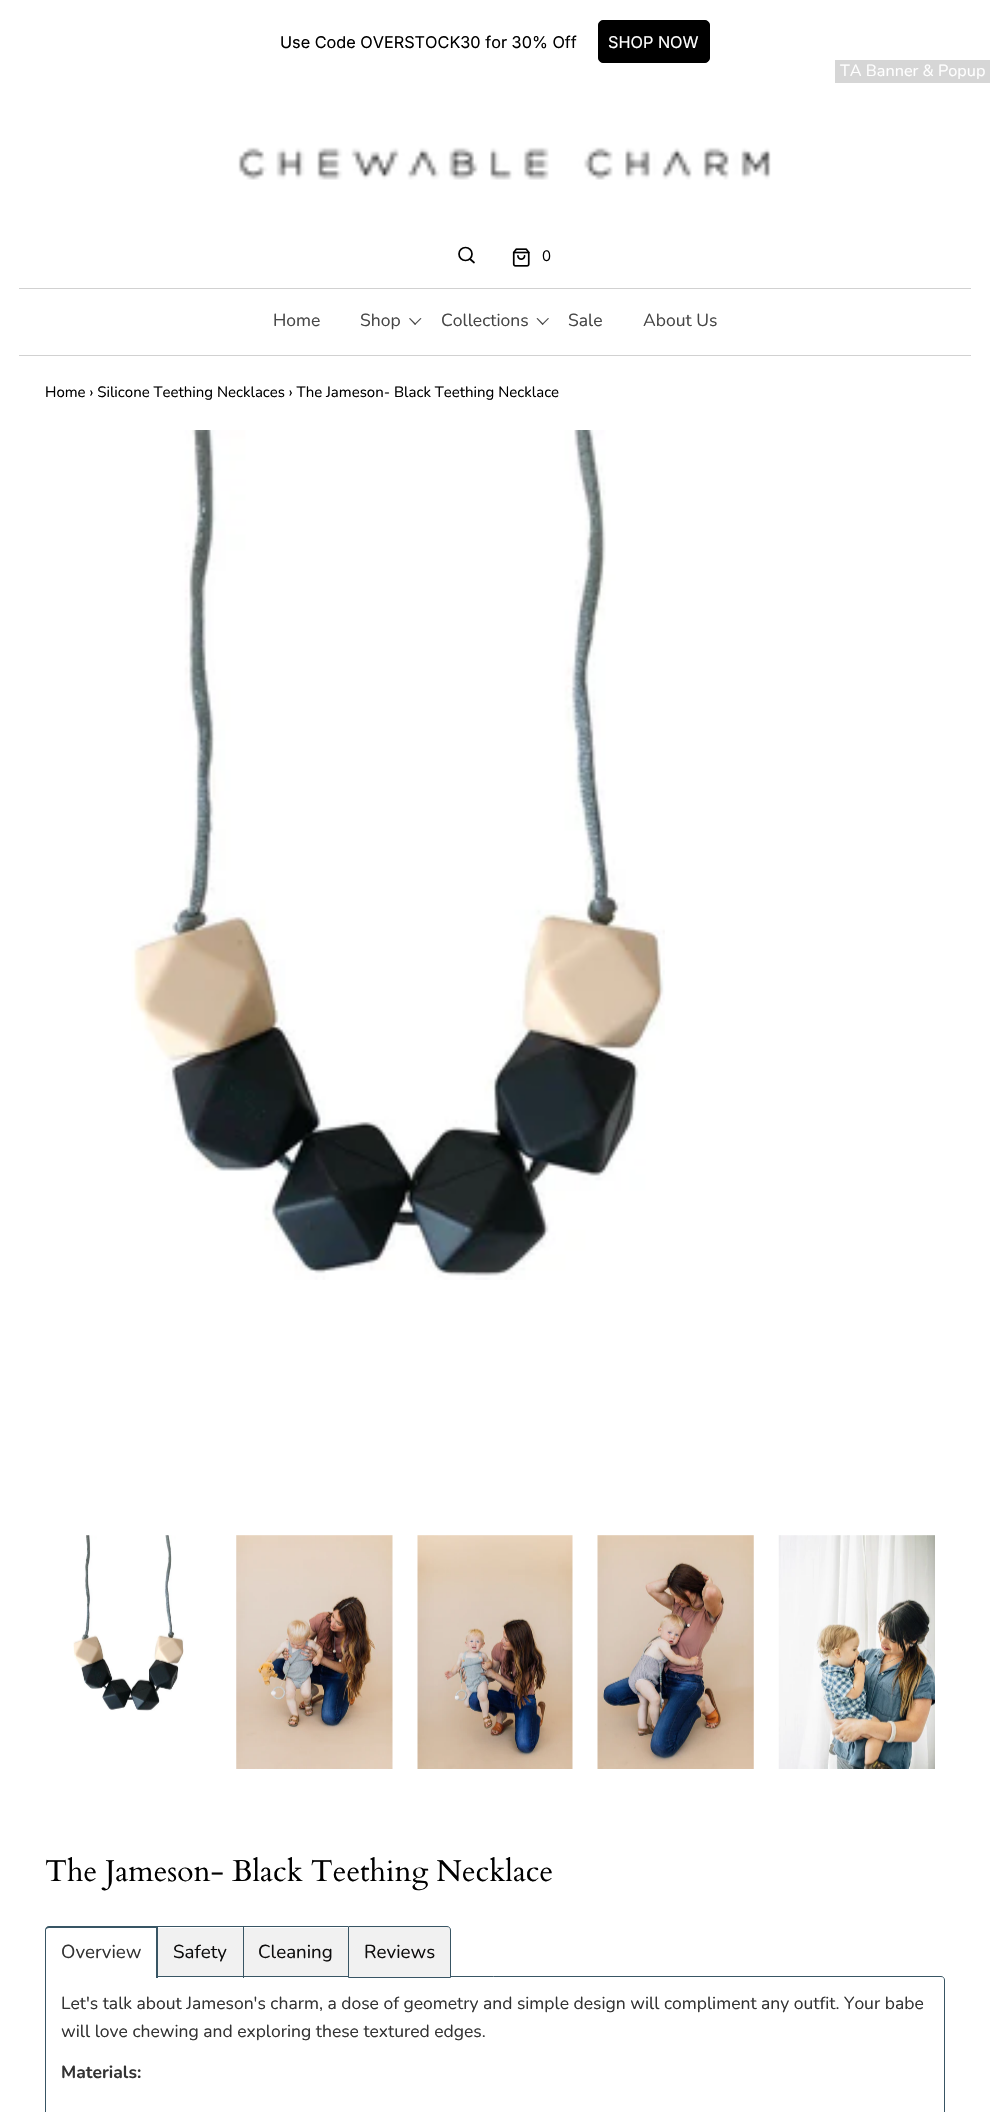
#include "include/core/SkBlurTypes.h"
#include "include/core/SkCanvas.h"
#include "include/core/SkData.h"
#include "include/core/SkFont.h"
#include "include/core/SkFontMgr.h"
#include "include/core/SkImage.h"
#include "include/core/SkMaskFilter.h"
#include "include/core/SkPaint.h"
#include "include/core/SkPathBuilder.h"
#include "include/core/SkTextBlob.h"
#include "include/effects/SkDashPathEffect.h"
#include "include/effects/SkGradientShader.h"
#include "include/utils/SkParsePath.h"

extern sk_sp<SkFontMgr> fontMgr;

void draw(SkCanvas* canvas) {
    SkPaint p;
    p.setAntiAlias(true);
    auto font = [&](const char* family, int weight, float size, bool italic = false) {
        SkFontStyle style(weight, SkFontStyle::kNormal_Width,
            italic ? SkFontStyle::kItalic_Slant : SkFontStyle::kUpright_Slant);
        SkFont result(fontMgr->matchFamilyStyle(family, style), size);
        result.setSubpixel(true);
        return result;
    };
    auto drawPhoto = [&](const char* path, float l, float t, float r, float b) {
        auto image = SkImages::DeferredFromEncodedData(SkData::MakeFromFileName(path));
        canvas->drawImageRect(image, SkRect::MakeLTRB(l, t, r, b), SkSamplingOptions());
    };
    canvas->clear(0xFFFFFFFF);
    auto font1 = font("Inter", 400, 16.25f);
    p.setColor(0xFF000000);
    canvas->drawString("Use Code OVERSTOCK30 for 30% Off", 280, 48, font1, p);
    canvas->drawRoundRect(SkRect::MakeLTRB(598.5f, 20.5f, 709.5f, 62.5f), 4.5f, 4.5f, p);
    p.setStyle(SkPaint::kStroke_Style);
    p.setStrokeWidth(1);
    canvas->drawRoundRect(SkRect::MakeLTRB(598.5f, 20.5f, 709.5f, 62.5f), 4.5f, 4.5f, p);
    p.setStyle(SkPaint::kFill_Style);
    p.setColor(0xFFFFFFFF);
    canvas->drawString("SHOP NOW", 608, 48, font1, p);
    p.setColor(0xFFD6D6D6);
    canvas->drawRect(SkRect::MakeLTRB(835, 60, 990, 83), p);
    auto font2 = font("Nunito", 400, 16.25f);
    p.setColor(0xFFFFFFFF);
    canvas->drawString("TA Banner & Popup", 840, 76, font2, p);
    drawPhoto("media/1.png", 238, 147, 771, 180);
    p.setStyle(SkPaint::kStroke_Style);
    p.setStrokeWidth(1.7f);
    p.setColor(0xFF000000);
    canvas->drawCircle(465.5f, 254, 6.5f, p);
    p.setStrokeCap(SkPaint::kRound_Cap);
    p.setStrokeJoin(SkPaint::kRound_Join);
    canvas->drawPath(SkPathBuilder().moveTo(474, 262.5f).lineTo(470, 259).detach(), p);
    drawPhoto("media/2.png", 512, 248, 530, 267);
    auto font3 = font("Nunito", 400, 15);
    p.setStyle(SkPaint::kFill_Style);
    canvas->drawString("0", 542, 261, font3, p);
    p.setColor(0xFFD1D1D1);
    canvas->drawRect(SkRect::MakeLTRB(19, 288, 971, 289), p);
    canvas->drawRect(SkRect::MakeLTRB(19, 355, 971, 356), p);
    auto font4 = font("Nunito", 400, 17.5f);
    p.setColor(0xFF464646);
    canvas->drawString("Home", 273, 326, font4, p);
    canvas->drawString("Shop", 360, 326, font4, p);
    canvas->drawPath(SkPathBuilder().moveTo(420.5f, 318).lineTo(421.5f, 318.5f).lineTo(415, 325).lineTo(414.5f, 324).close().detach(), p);
    canvas->drawPath(SkPathBuilder().moveTo(410, 318).lineTo(416, 324).lineTo(415, 325).lineTo(409, 318.5f).close().detach(), p);
    canvas->drawString("Collections", 441, 326, font4, p);
    canvas->drawPath(SkPathBuilder().moveTo(548, 318).lineTo(549, 318.5f).lineTo(542.5f, 325).lineTo(542, 324).close().detach(), p);
    canvas->drawPath(SkPathBuilder().moveTo(537.5f, 318).lineTo(543.5f, 324).lineTo(542.5f, 325).lineTo(536.5f, 318.5f).close().detach(), p);
    canvas->drawString("Sale", 568, 326, font4, p);
    canvas->drawString("About Us", 643, 326, font4, p);
    p.setColor(0xFF000000);
    canvas->drawString("Home › Silicone Teething Necklaces › The Jameson- Black Teething Necklace", 45, 397, font3, p);
    drawPhoto("media/3.png", 131, 430, 665, 1280);
    drawPhoto("media/4.png", 73, 1535, 184, 1711);
    drawPhoto("media/5.png", 236, 1535, 393, 1769);
    drawPhoto("media/6.png", 417, 1535, 573, 1769);
    drawPhoto("media/7.png", 597, 1535, 754, 1769);
    drawPhoto("media/8.png", 778, 1535, 935, 1769);
    auto font5 = font("Cardo", 400, 30);
    canvas->drawString("The Jameson- Black Teething Necklace", 45, 1881, font5, p);
    p.setStyle(SkPaint::kStroke_Style);
    p.setStrokeWidth(1);
    p.setStrokeCap(SkPaint::kButt_Cap);
    p.setStrokeJoin(SkPaint::kMiter_Join);
    p.setColor(0xFF385564);
    canvas->drawPath(SkPathBuilder().moveTo(45.5f, 1976.5f).lineTo(941, 1976.5f).cubicTo(943, 1976.5f, 944.5f, 1978, 944.5f, 1980).lineTo(944.5f, 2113).cubicTo(944.5f, 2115, 943, 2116.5f, 941, 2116.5f).lineTo(49, 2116.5f).cubicTo(47, 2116.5f, 45.5f, 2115, 45.5f, 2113).close().detach(), p);
    p.setStyle(SkPaint::kFill_Style);
    p.setColor(0xFFFFFFFF);
    canvas->drawPath(SkPathBuilder().moveTo(48.5f, 1928).lineTo(156, 1928).lineTo(156, 1978).lineTo(46, 1978).lineTo(46, 1930.5f).cubicTo(46, 1929, 47, 1928, 48.5f, 1928).close().detach(), p);
    p.setColor(0xFF385564);
    canvas->drawPath(SkPathBuilder(SkPathFillType::kEvenOdd).moveTo(49, 1926).lineTo(158, 1926).lineTo(158, 1978).lineTo(45, 1978).lineTo(45, 1930).cubicTo(45, 1928, 47, 1926, 49, 1926).close().moveTo(49, 1928).lineTo(156, 1928).lineTo(156, 1978).lineTo(46, 1978).lineTo(46, 1930).cubicTo(46, 1929, 47, 1928, 49, 1928).close().detach(), p);
    auto font6 = font("Nunito", 400, 18.75f);
    p.setColor(0xFF333333);
    canvas->drawString("Overview", 61, 1958, font6, p);
    p.setColor(0xFFF1F1F1);
    canvas->drawRect(SkRect::MakeLTRB(158, 1928, 243, 1976), p);
    p.setColor(0xFF385564);
    canvas->drawRect(SkRect::MakeLTRB(158, 1926, 348, 1927), p);
    p.setColor(0xFF0E0D0D);
    canvas->drawString("Safety", 173, 1958, font6, p);
    p.setColor(0xFFF1F1F1);
    canvas->drawRect(SkRect::MakeLTRB(244, 1928, 348, 1976), p);
    p.setColor(0xFF385564);
    canvas->drawRect(SkRect::MakeLTRB(243, 1926, 244, 1978), p);
    p.setColor(0xFF0E0D0D);
    canvas->drawString("Cleaning", 258, 1958, font6, p);
    p.setColor(0xFFF1F1F1);
    canvas->drawPath(SkPathBuilder().moveTo(348.5f, 1926.5f).lineTo(447, 1926.5f).cubicTo(449, 1926.5f, 450.5f, 1928, 450.5f, 1930).lineTo(450.5f, 1977.5f).lineTo(348.5f, 1977.5f).close().detach(), p);
    p.setStyle(SkPaint::kStroke_Style);
    p.setColor(0xFF385564);
    canvas->drawPath(SkPathBuilder().moveTo(348.5f, 1926.5f).lineTo(447, 1926.5f).cubicTo(449, 1926.5f, 450.5f, 1928, 450.5f, 1930).lineTo(450.5f, 1977.5f).lineTo(348.5f, 1977.5f).close().detach(), p);
    p.setStyle(SkPaint::kFill_Style);
    p.setColor(0xFF0E0D0D);
    canvas->drawString("Reviews", 364, 1958, font6, p);
    p.setColor(0xFF333333);
    canvas->drawString("Let's talk about Jameson's charm, a dose of geometry and simple design will compliment any outfit. Your babe", 61, 2009, font4, p);
    canvas->drawString("will love chewing and exploring these textured edges.", 61, 2037, font4, p);
    auto font7 = font("Nunito", 700, 17.5f);
    canvas->drawString("Materials:", 61, 2078, font7, p);
}
